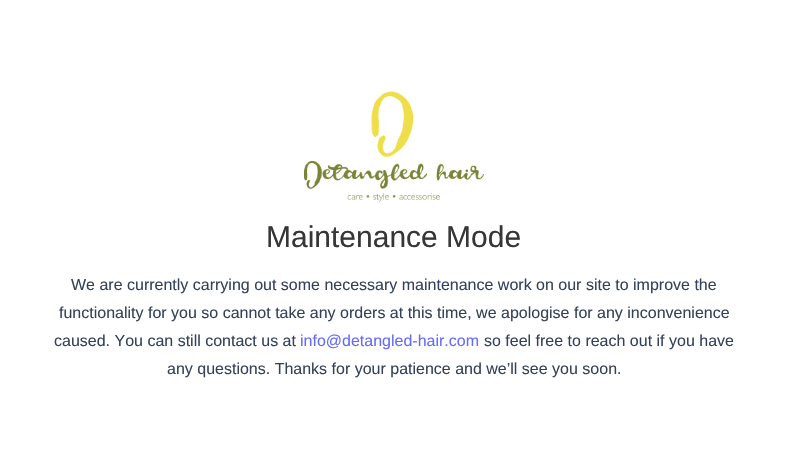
#include "include/core/SkBlurTypes.h"
#include "include/core/SkCanvas.h"
#include "include/core/SkData.h"
#include "include/core/SkFont.h"
#include "include/core/SkFontMgr.h"
#include "include/core/SkImage.h"
#include "include/core/SkMaskFilter.h"
#include "include/core/SkPaint.h"
#include "include/core/SkPathBuilder.h"
#include "include/core/SkTextBlob.h"
#include "include/effects/SkDashPathEffect.h"
#include "include/effects/SkGradientShader.h"
#include "include/utils/SkParsePath.h"

extern sk_sp<SkFontMgr> fontMgr;

void draw(SkCanvas* canvas) {
    SkPaint p;
    p.setAntiAlias(true);
    auto font = [&](const char* family, int weight, float size, bool italic = false) {
        SkFontStyle style(weight, SkFontStyle::kNormal_Width,
            italic ? SkFontStyle::kItalic_Slant : SkFontStyle::kUpright_Slant);
        SkFont result(fontMgr->matchFamilyStyle(family, style), size);
        result.setSubpixel(true);
        return result;
    };
    auto drawPhoto = [&](const char* path, float l, float t, float r, float b) {
        auto image = SkImages::DeferredFromEncodedData(SkData::MakeFromFileName(path));
        canvas->drawImageRect(image, SkRect::MakeLTRB(l, t, r, b), SkSamplingOptions());
    };
    canvas->clear(0xFFFFFFFF);
    drawPhoto("media/1.png", 304, 91, 484, 202);
    auto font1 = font("Liberation Sans", 400, 30);
    p.setColor(0xFF363636);
    canvas->drawString("Maintenance Mode", 266, 247, font1, p);
    auto font2 = font("Liberation Sans", 400, 16);
    p.setColor(0xFF35415B);
    {
        const struct { const char* s; float x, y; } items[] = {
            {"We are currently carrying out some necessary maintenance work on our site to improve the", 71, 290},
            {"functionality for you so cannot take any orders at this time, we apologise for any inconvenience", 59, 318},
            {"caused. You can still contact us at", 54, 346},
        };
        for (auto [s, x, y] : items) {
            canvas->drawString(s, x, y, font2, p);
        }
    }
    p.setColor(0xFF646CFD);
    canvas->drawString("info@detangled-hair.com", 300, 346, font2, p);
    p.setColor(0xFF35415B);
    canvas->drawString("so feel free to reach out if you have", 484, 346, font2, p);
    canvas->drawString("any questions. Thanks for your patience and we’ll see you soon.", 167, 374, font2, p);
}
